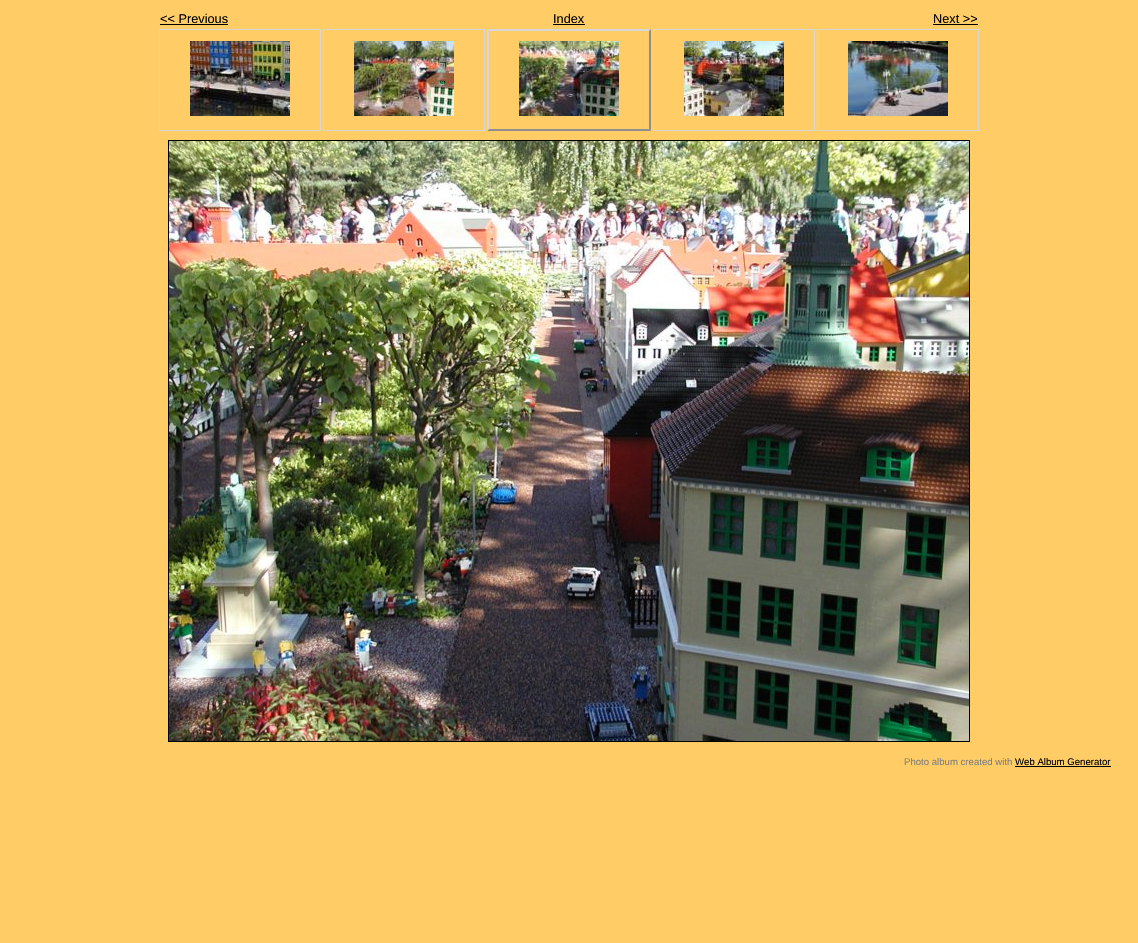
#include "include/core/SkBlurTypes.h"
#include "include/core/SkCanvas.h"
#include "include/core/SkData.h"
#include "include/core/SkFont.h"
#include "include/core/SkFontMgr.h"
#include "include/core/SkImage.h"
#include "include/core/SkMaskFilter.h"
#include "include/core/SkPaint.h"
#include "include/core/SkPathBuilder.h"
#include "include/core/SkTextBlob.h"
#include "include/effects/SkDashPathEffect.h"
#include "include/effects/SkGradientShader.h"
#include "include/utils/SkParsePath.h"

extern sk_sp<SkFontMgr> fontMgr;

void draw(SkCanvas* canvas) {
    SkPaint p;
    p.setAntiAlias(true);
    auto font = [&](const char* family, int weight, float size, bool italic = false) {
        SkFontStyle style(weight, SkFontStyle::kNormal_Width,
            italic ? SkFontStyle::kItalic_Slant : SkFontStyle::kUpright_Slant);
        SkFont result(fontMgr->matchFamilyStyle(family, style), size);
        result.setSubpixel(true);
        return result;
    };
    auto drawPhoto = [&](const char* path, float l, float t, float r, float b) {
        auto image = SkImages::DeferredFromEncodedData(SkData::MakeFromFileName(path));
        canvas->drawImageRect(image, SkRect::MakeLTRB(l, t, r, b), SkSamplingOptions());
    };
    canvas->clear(0xFFFFCC66);
    auto font1 = font("Liberation Sans", 400, 12.75f);
    p.setColor(0xFF000000);
    canvas->drawString("<< Previous", 160, 23, font1, p);
    canvas->drawRect(SkRect::MakeLTRB(160, 24, 228, 25), p);
    canvas->drawString("Index", 553, 23, font1, p);
    canvas->drawRect(SkRect::MakeLTRB(553, 24, 585, 25), p);
    canvas->drawString("Next >>", 933, 23, font1, p);
    canvas->drawRect(SkRect::MakeLTRB(933, 24, 978, 25), p);
    p.setStyle(SkPaint::kStroke_Style);
    p.setStrokeWidth(1);
    p.setColor(0xFFD7D7D7);
    canvas->drawRect(SkRect::MakeLTRB(159.5f, 29.5f, 320.5f, 130.5f), p);
    drawPhoto("media/1.png", 190, 41, 290, 116);
    canvas->drawRect(SkRect::MakeLTRB(323.5f, 29.5f, 484.5f, 130.5f), p);
    drawPhoto("media/2.png", 354, 41, 454, 116);
    p.setStyle(SkPaint::kFill_Style);
    canvas->drawPath(SkPathBuilder().moveTo(487, 29).lineTo(651, 29).lineTo(649, 31).lineTo(489, 31).close().detach(), p);
    p.setColor(0xFF8F8F8F);
    canvas->drawPath(SkPathBuilder().moveTo(651, 29).lineTo(651, 131).lineTo(649, 129).lineTo(649, 31).close().detach(), p);
    canvas->drawPath(SkPathBuilder().moveTo(651, 131).lineTo(487, 131).lineTo(489, 129).lineTo(649, 129).close().detach(), p);
    p.setColor(0xFFD7D7D7);
    canvas->drawPath(SkPathBuilder().moveTo(487, 131).lineTo(487, 29).lineTo(489, 31).lineTo(489, 129).close().detach(), p);
    drawPhoto("media/3.png", 519, 41, 619, 116);
    p.setStyle(SkPaint::kStroke_Style);
    canvas->drawRect(SkRect::MakeLTRB(653.5f, 29.5f, 814.5f, 130.5f), p);
    drawPhoto("media/4.png", 684, 41, 784, 116);
    canvas->drawRect(SkRect::MakeLTRB(817.5f, 29.5f, 978.5f, 130.5f), p);
    drawPhoto("media/5.png", 848, 41, 948, 116);
    p.setColor(0xFF000000);
    canvas->drawRect(SkRect::MakeLTRB(168.5f, 140.5f, 969.5f, 741.5f), p);
    drawPhoto("media/6.png", 169, 141, 969, 741);
    auto font2 = font("Liberation Sans", 400, 9.6f);
    p.setStyle(SkPaint::kFill_Style);
    p.setColor(0xFF808080);
    canvas->drawString("Photo album created with", 904, 765, font2, p);
    p.setColor(0xFF000000);
    canvas->drawString("Web Album Generator", 1015, 765, font2, p);
    canvas->drawRect(SkRect::MakeLTRB(1015, 766, 1111, 767), p);
}
